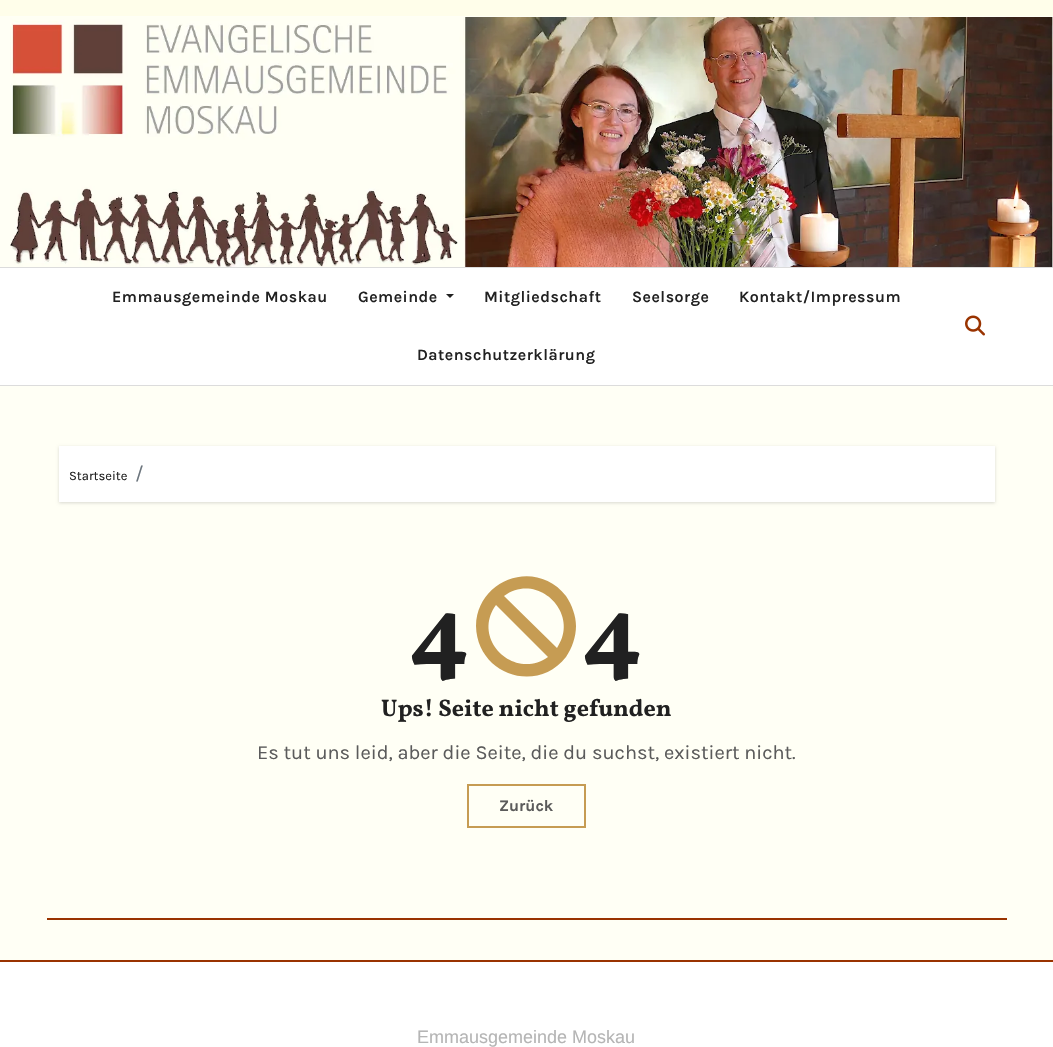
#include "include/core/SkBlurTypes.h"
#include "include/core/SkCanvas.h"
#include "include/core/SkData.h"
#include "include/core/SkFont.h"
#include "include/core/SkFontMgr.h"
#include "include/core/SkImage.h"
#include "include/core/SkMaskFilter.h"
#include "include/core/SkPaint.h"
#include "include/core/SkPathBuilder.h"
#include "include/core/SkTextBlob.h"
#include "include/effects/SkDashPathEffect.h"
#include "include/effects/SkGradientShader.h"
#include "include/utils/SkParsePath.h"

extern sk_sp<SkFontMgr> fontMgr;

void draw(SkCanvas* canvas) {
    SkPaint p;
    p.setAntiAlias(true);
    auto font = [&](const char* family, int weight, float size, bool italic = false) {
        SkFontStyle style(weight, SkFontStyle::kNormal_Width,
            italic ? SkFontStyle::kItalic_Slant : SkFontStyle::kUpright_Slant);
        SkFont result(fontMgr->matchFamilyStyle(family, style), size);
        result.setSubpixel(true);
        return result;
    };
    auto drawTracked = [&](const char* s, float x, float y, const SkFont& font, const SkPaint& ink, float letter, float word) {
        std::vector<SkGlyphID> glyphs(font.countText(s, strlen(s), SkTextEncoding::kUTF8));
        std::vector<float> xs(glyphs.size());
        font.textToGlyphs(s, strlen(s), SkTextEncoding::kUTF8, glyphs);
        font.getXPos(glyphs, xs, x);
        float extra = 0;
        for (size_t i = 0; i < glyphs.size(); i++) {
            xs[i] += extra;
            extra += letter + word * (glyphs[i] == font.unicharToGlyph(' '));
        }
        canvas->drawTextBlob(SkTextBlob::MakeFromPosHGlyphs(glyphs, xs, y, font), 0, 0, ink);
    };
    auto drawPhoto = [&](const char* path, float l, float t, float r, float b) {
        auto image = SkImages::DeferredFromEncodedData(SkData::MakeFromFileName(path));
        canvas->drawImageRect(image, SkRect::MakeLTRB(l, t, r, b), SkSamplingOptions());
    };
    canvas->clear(0xFFFFFFF5);
    p.setColor(0xFFFFFEEA);
    canvas->drawRect(SkRect::MakeLTRB(0, 0, 1053, 16), p);
    drawPhoto("media/1.png", 10, 17, 1053, 267);
    {
        const struct { float l, t, r, b; SkColor color; } items[] = {
            {0, 268, 1053, 385, 0xFFFFFFFF},
            {0, 267, 1053, 268, 0xFFDCDCDC},
            {0, 385, 1053, 386, 0xFFDCDCDC},
        };
        for (auto [l, t, r, b, color] : items) {
            p.setColor(color);
            canvas->drawRect(SkRect::MakeLTRB(l, t, r, b), p);
        }
    }
    auto font1 = font("Karla", 600, 16);
    p.setColor(0xFF212121);
    drawTracked("Emmausgemeinde Moskau", 112, 302, font1, p, 0.5f, 0);
    drawTracked("Gemeinde", 358, 302, font1, p, 0.5f, 0);
    canvas->drawPath(SkPathBuilder().moveTo(446, 294).lineTo(454, 294).lineTo(450, 298).close().detach(), p);
    {
        const struct { const char* s; float x, y; } items[] = {
            {"Mitgliedschaft", 484, 302},
            {"Seelsorge", 632, 302},
            {"Kontakt/Impressum", 739, 302},
            {"Datenschutzerklärung", 417, 360},
        };
        for (auto [s, x, y] : items) {
            drawTracked(s, x, y, font1, p, 0.5f, 0);
        }
    }
    drawPhoto("media/2.png", 965, 315, 985, 336);
    p.setColor(0xFF993300);
    canvas->drawRect(SkRect::MakeLTRB(0, 960, 1053, 962), p);
    canvas->drawRect(SkRect::MakeLTRB(47, 918, 1007, 920), p);
    p.setColor(0x26000000);
    p.setMaskFilter(SkMaskFilter::MakeBlur(kNormal_SkBlurStyle, 1.5f));
    canvas->drawRect(SkRect::MakeLTRB(59, 447, 995, 503), p);
    p.setMaskFilter(nullptr);
    p.setColor(0xFFFFFFFF);
    canvas->drawRect(SkRect::MakeLTRB(59, 446, 995, 502), p);
    auto font2 = font("Karla", 400, 13);
    p.setColor(0xFF212121);
    canvas->drawString("Startseite", 69, 480, font2, p);
    auto font3 = font("Karla", 400, 20);
    p.setColor(0xFF6C757D);
    canvas->drawString("/", 135, 480, font3, p);
    auto font4 = font("Vollkorn", 700, 100);
    p.setColor(0xFF212121);
    drawTracked("4", 409, 664, font4, p, 1, 0);
    p.setColor(0xFFC69C53);
    canvas->drawPath(SkPathBuilder().moveTo(548, 657).lineTo(496, 605).cubicTo(471, 639, 514, 681, 548, 657).close().moveTo(557, 648).cubicTo(581, 614, 538, 571, 504, 596).close().moveTo(476, 626).cubicTo(477, 579, 536, 558, 566, 596).cubicTo(572, 605, 576, 616, 576, 626).cubicTo(576, 637, 572, 648, 566, 657).cubicTo(536, 695, 477, 674, 476, 626).close().detach(), p);
    p.setColor(0xFF212121);
    drawTracked("4", 582, 664, font4, p, 1, 0);
    auto font5 = font("Vollkorn", 700, 24);
    canvas->drawString("Ups! Seite nicht gefunden", 381, 716, font5, p);
    p.setColor(0xFF5B5B5B);
    canvas->drawString("Es tut uns leid, aber die Seite, die du suchst, existiert nicht.", 257, 759, font3, p);
    p.setStyle(SkPaint::kStroke_Style);
    p.setStrokeWidth(2);
    p.setColor(0xFFC69C53);
    canvas->drawRect(SkRect::MakeLTRB(468, 785, 585, 827), p);
    auto font6 = font("Karla", 700, 16);
    p.setStyle(SkPaint::kFill_Style);
    p.setColor(0xFF5B5B5B);
    canvas->drawString("Zurück", 499, 811, font6, p);
    p.setColor(0xFFFFFFFF);
    canvas->drawRect(SkRect::MakeLTRB(0, 962, 1053, 1047), p);
    auto font7 = font("Liberation Sans", 400, 18);
    p.setColor(0xFFB5B5B5);
    canvas->drawString("Emmausgemeinde Moskau", 417, 1043, font7, p);
}
